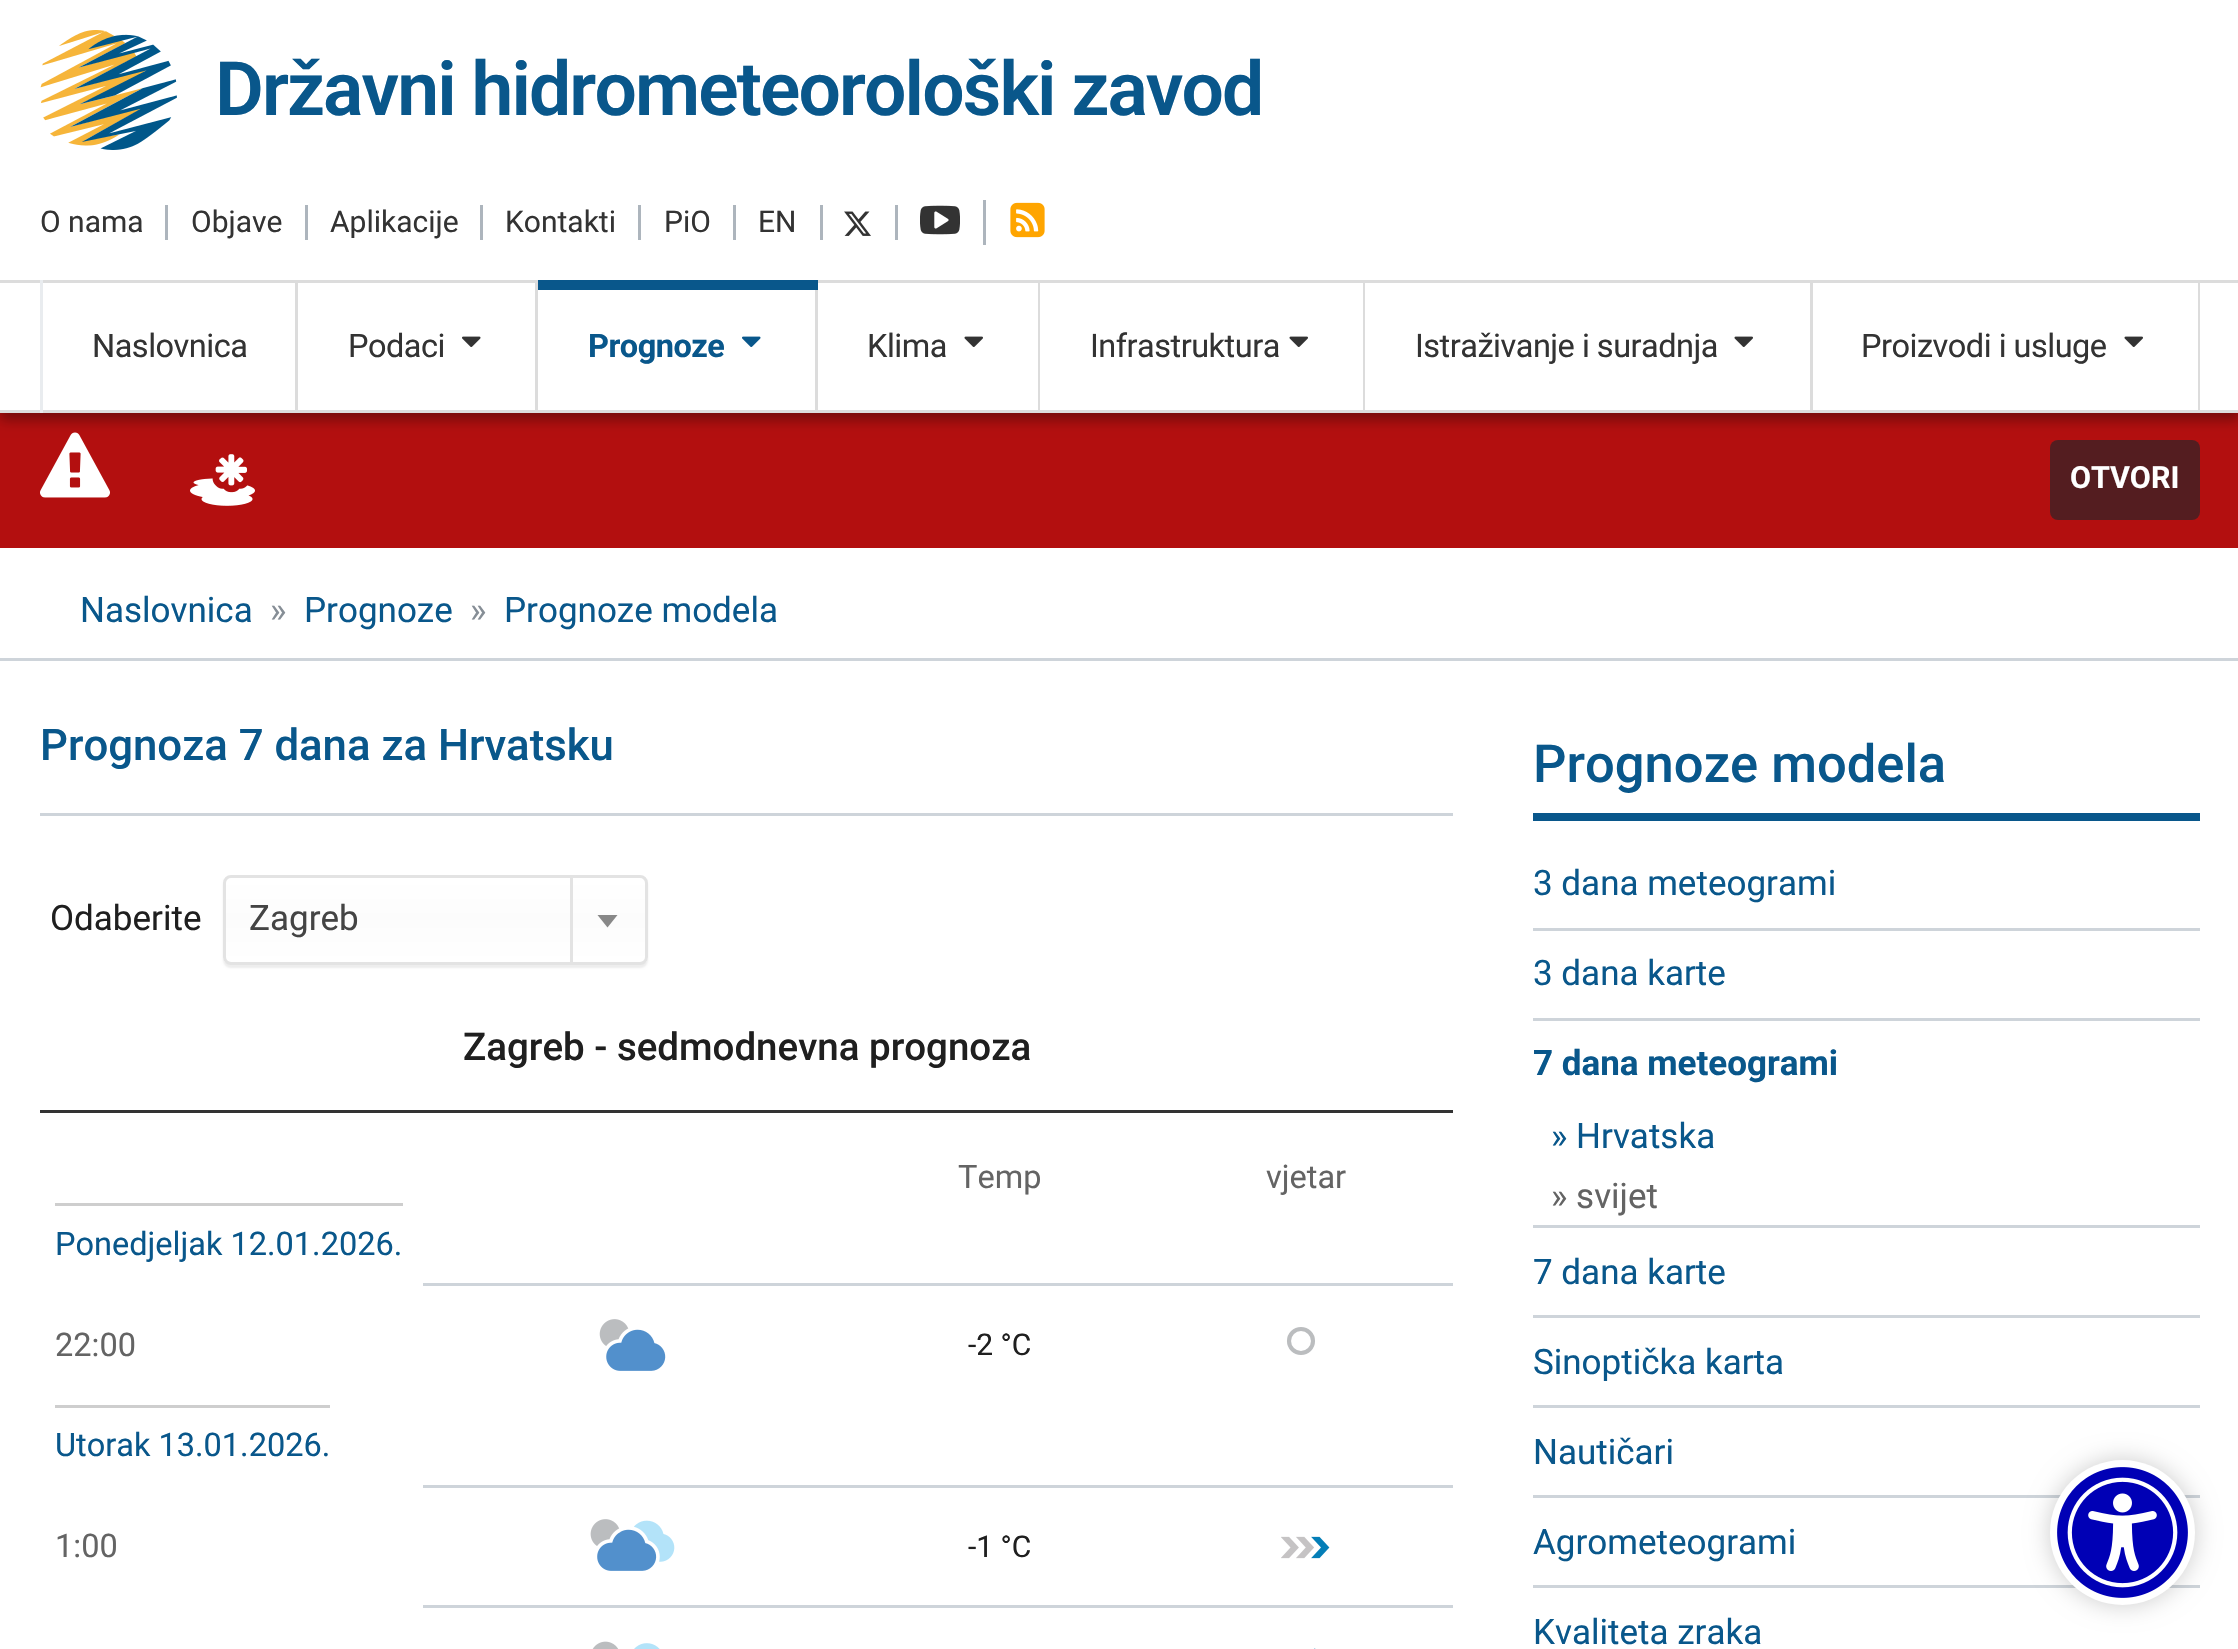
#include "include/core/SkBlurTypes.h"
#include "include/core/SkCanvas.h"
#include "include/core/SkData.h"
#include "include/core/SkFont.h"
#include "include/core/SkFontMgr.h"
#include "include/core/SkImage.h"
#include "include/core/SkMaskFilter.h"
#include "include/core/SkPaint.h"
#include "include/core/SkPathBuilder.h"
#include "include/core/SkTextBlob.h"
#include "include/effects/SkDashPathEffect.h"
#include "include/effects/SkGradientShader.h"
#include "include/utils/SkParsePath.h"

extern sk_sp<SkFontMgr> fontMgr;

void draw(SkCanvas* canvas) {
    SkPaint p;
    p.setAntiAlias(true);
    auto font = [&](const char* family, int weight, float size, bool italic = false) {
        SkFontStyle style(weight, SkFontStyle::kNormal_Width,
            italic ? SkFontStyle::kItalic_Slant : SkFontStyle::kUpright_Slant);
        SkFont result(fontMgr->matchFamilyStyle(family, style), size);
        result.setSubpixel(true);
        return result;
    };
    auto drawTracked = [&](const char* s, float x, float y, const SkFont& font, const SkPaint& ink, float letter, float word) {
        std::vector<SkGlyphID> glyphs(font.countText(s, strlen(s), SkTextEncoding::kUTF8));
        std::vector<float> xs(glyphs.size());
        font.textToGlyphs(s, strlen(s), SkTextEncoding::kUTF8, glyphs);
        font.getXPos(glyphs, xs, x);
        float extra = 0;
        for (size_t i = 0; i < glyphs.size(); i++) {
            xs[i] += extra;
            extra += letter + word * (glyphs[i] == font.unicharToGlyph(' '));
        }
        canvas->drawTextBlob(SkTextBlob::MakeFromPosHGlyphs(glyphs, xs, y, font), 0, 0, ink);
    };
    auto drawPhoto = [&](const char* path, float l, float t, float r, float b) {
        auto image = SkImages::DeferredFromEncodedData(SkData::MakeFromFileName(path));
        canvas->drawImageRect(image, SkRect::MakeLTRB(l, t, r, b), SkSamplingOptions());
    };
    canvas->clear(0xFFFFFFFF);
    p.setColor(0xFFB30F0F);
    canvas->drawRect(SkRect::MakeLTRB(0, 413, 2238, 548), p);
    drawPhoto("media/8.png", 40, 432, 110, 498);
    p.setColor(0x59000000);
    p.setMaskFilter(SkMaskFilter::MakeBlur(kNormal_SkBlurStyle, 6));
    canvas->drawRect(SkRect::MakeLTRB(0, 8, 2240, 420), p);
    p.setMaskFilter(nullptr);
    p.setColor(0xFFFFFFFF);
    canvas->drawRect(SkRect::MakeLTRB(0, 0, 2238, 410), p);
    drawPhoto("media/1.png", 40, 30, 177, 150);
    auto font1 = font("Roboto", 600, 75);
    p.setColor(0xFF09578B);
    drawTracked("Državni hidrometeorološki zavod", 215, 115, font1, p, -1.9f, 0);
    p.setColor(0xFFADB5BD);
    canvas->drawRect(SkRect::MakeLTRB(165, 205, 168, 240), p);
    auto font2 = font("Roboto", 400, 30);
    p.setColor(0xFF333333);
    canvas->drawString("O nama", 40, 232, font2, p);
    p.setColor(0xFFADB5BD);
    canvas->drawRect(SkRect::MakeLTRB(305, 205, 308, 240), p);
    p.setColor(0xFF333333);
    canvas->drawString("Objave", 191, 232, font2, p);
    p.setColor(0xFFADB5BD);
    canvas->drawRect(SkRect::MakeLTRB(480, 205, 483, 240), p);
    p.setColor(0xFF333333);
    canvas->drawString("Aplikacije", 330, 232, font2, p);
    p.setColor(0xFFADB5BD);
    canvas->drawRect(SkRect::MakeLTRB(638, 205, 641, 240), p);
    p.setColor(0xFF333333);
    canvas->drawString("Kontakti", 505, 232, font2, p);
    p.setColor(0xFFADB5BD);
    canvas->drawRect(SkRect::MakeLTRB(733, 205, 736, 240), p);
    p.setColor(0xFF333333);
    canvas->drawString("PiO", 664, 232, font2, p);
    p.setColor(0xFFADB5BD);
    canvas->drawRect(SkRect::MakeLTRB(820, 205, 823, 240), p);
    p.setColor(0xFF333333);
    canvas->drawString("EN", 758, 232, font2, p);
    p.setColor(0xFFADB5BD);
    canvas->drawRect(SkRect::MakeLTRB(895, 205, 898, 240), p);
    drawPhoto("media/2.png", 844, 211, 871, 236);
    canvas->drawRect(SkRect::MakeLTRB(983, 200, 986, 245), p);
    drawPhoto("media/3.png", 920, 205, 960, 235);
    drawPhoto("media/4.png", 1010, 202, 1045, 238);
    {
        const struct { float l, t, r, b; SkColor color; } items[] = {
            {0, 280, 2238, 283, 0xFFDCDCDC},
            {0, 410, 2238, 413, 0xFFDCDCDC},
            {295, 280, 298, 413, 0xFFDCDCDC},
            {40, 280, 43, 413, 0xFFE9ECEF},
        };
        for (auto [l, t, r, b, color] : items) {
            p.setColor(color);
            canvas->drawRect(SkRect::MakeLTRB(l, t, r, b), p);
        }
    }
    auto font3 = font("Roboto", 400, 32.5f);
    p.setColor(0xFF333333);
    drawTracked("Naslovnica", 92, 357, font3, p, -0.5f, 0);
    p.setColor(0xFFDCDCDC);
    canvas->drawRect(SkRect::MakeLTRB(535, 280, 538, 413), p);
    p.setColor(0xFF333333);
    drawTracked("Podaci", 348, 357, font3, p, -0.5f, 0);
    drawPhoto("media/5.png", 462, 336, 481, 347);
    p.setColor(0xFFDCDCDC);
    canvas->drawRect(SkRect::MakeLTRB(815, 290, 818, 413), p);
    p.setColor(0xFF09578B);
    canvas->drawRect(SkRect::MakeLTRB(538, 280, 818, 290), p);
    auto font4 = font("Roboto", 700, 32.5f);
    drawTracked("Prognoze", 588, 357, font4, p, -0.5f, 0);
    drawPhoto("media/6.png", 742, 336, 761, 347);
    p.setColor(0xFFDCDCDC);
    canvas->drawRect(SkRect::MakeLTRB(1038, 280, 1040, 413), p);
    p.setColor(0xFF333333);
    drawTracked("Klima", 867, 357, font3, p, -0.5f, 0);
    drawPhoto("media/7.png", 964, 336, 983, 347);
    p.setColor(0xFFDCDCDC);
    canvas->drawRect(SkRect::MakeLTRB(1363, 280, 1365, 413), p);
    p.setColor(0xFF333333);
    drawTracked("Infrastruktura", 1090, 357, font3, p, -0.5f, 0);
    drawPhoto("media/7.png", 1289, 336, 1308, 347);
    p.setColor(0xFFDCDCDC);
    canvas->drawRect(SkRect::MakeLTRB(1810, 280, 1813, 413), p);
    p.setColor(0xFF333333);
    drawTracked("Istraživanje i suradnja", 1415, 357, font3, p, -0.5f, 0);
    drawPhoto("media/7.png", 1734, 336, 1753, 347);
    p.setColor(0xFFDCDCDC);
    canvas->drawRect(SkRect::MakeLTRB(2198, 280, 2200, 413), p);
    p.setColor(0xFF333333);
    drawTracked("Proizvodi i usluge", 1861, 357, font3, p, -0.5f, 0);
    drawPhoto("media/7.png", 2124, 336, 2143, 347);
    drawPhoto("media/9.png", 190, 454, 255, 506);
    p.setColor(0xFF541D20);
    canvas->drawRoundRect(SkRect::MakeLTRB(2050, 440, 2200, 520), 8, 8, p);
    auto font5 = font("Roboto", 700, 30.5f);
    p.setColor(0xFFFFFFFF);
    canvas->drawString("OTVORI", 2070, 488, font5, p);
    p.setColor(0xFFCED4DA);
    canvas->drawRect(SkRect::MakeLTRB(0, 658, 2238, 661), p);
    auto font6 = font("Roboto", 400, 35);
    p.setColor(0xFF09578B);
    canvas->drawString("Naslovnica", 80, 622, font6, p);
    p.setColor(0xFF868E96);
    canvas->drawString("»", 270, 622, font6, p);
    p.setColor(0xFF09578B);
    canvas->drawString("Prognoze", 304, 622, font6, p);
    p.setColor(0xFF868E96);
    canvas->drawString("»", 470, 622, font6, p);
    p.setColor(0xFF09578B);
    canvas->drawString("Prognoze modela", 504, 622, font6, p);
    auto font7 = font("Roboto", 500, 43.75f);
    canvas->drawString("Prognoza 7 dana za Hrvatsku", 40, 760, font7, p);
    p.setColor(0xFFCED4DA);
    canvas->drawRect(SkRect::MakeLTRB(40, 813, 1453, 816), p);
    p.setColor(0xFF1F1F1F);
    canvas->drawString("Odaberite", 50, 930, font6, p);
    p.setColor(0x12000000);
    p.setMaskFilter(SkMaskFilter::MakeBlur(kNormal_SkBlurStyle, 1));
    canvas->drawRoundRect(SkRect::MakeLTRB(223, 878, 648, 968), 8, 8, p);
    p.setMaskFilter(nullptr);
    canvas->save();
    canvas->clipPath(SkPathBuilder().moveTo(231, 875).lineTo(640, 875).cubicTo(644.5f, 875, 648, 878.5f, 648, 883).lineTo(648, 957).cubicTo(648, 961.5f, 644.5f, 965, 640, 965).lineTo(231, 965).cubicTo(226.5f, 965, 223, 961.5f, 223, 957).lineTo(223, 883).cubicTo(223, 878.5f, 226.5f, 875, 231, 875).close().detach(), true);
    {
        const SkColor colors[] = {0xFFFFFFFF, 0xFFFCFCFC, 0xFFFFFFFF};
        const float stops[] = {0, 0.5f, 1};
        const SkPoint ends[] = {{435, 878}, {435, 963}};
        p.setShader(SkGradientShader::MakeLinear(ends, colors, stops, 3, SkTileMode::kClamp));
        p.setAlpha(255);
    }
    canvas->drawRect(SkRect::MakeLTRB(223, 878, 648, 963), p);
    canvas->restore();
    p.setStyle(SkPaint::kStroke_Style);
    p.setStrokeWidth(3);
    p.setShader(nullptr);
    p.setColor(0xFFE3E3E3);
    canvas->drawRoundRect(SkRect::MakeLTRB(224.5f, 876.5f, 646.5f, 963.5f), 6.5f, 6.5f, p);
    p.setStyle(SkPaint::kFill_Style);
    p.setColor(0xFF444444);
    canvas->drawString("Zagreb", 249, 930, font6, p);
    p.setColor(0xFFE3E3E3);
    canvas->drawRect(SkRect::MakeLTRB(570, 878, 573, 963), p);
    p.setColor(0xFF888888);
    canvas->drawPath(SkPathBuilder().moveTo(597.5f, 915).lineTo(617.5f, 915).lineTo(607.5f, 927.5f).close().detach(), p);
    p.setColor(0xFF333333);
    canvas->drawRect(SkRect::MakeLTRB(40, 1110, 1453, 1113), p);
    auto font8 = font("Roboto", 500, 38.5f);
    p.setColor(0xFF1F1F1F);
    canvas->drawString("Zagreb - sedmodnevna prognoza", 463, 1060, font8, p);
    p.setColor(0xFF646464);
    canvas->drawString("Temp", 958, 1188, font3, p);
    canvas->drawString("vjetar", 1266, 1188, font3, p);
    p.setColor(0xFF09578B);
    canvas->drawString("Ponedjeljak 12.01.2026.", 55, 1255, font3, p);
    p.setColor(0xFFCECECE);
    canvas->drawRect(SkRect::MakeLTRB(55, 1203, 403, 1206), p);
    p.setColor(0xFFCED4DA);
    canvas->drawRect(SkRect::MakeLTRB(423, 1283, 1453, 1286), p);
    p.setStyle(SkPaint::kStroke_Style);
    p.setStrokeWidth(4.1f);
    p.setColor(0xFFBBBDBF);
    canvas->drawCircle(1301, 1341, 12, p);
    p.setStyle(SkPaint::kFill_Style);
    p.setColor(0xFF646464);
    canvas->drawString("22:00", 55, 1356, font3, p);
    drawPhoto("media/10.png", 599, 1319, 666, 1371);
    p.setColor(0xFF1F1F1F);
    canvas->drawString("-2 °C", 968, 1355, font2, p);
    p.setColor(0xFF09578B);
    canvas->drawString("Utorak 13.01.2026.", 55, 1456, font3, p);
    p.setColor(0xFFCECECE);
    canvas->drawRect(SkRect::MakeLTRB(55, 1405, 330, 1408), p);
    p.setColor(0xFFCED4DA);
    canvas->drawRect(SkRect::MakeLTRB(423, 1485, 1453, 1488), p);
    drawPhoto("media/11.png", 1281, 1536, 1330, 1559);
    p.setColor(0xFF646464);
    canvas->drawString("1:00", 55, 1557, font3, p);
    drawPhoto("media/12.png", 590, 1519, 675, 1571);
    p.setColor(0xFF1F1F1F);
    canvas->drawString("-1 °C", 968, 1557, font2, p);
    p.setColor(0xFFCED4DA);
    canvas->drawRect(SkRect::MakeLTRB(423, 1605, 1453, 1608), p);
    drawPhoto("media/13.png", 1314, 1648, 1316, 1649);
    drawPhoto("media/14.png", 592, 1641, 660, 1649);
    p.setColor(0xFF09578B);
    canvas->drawRect(SkRect::MakeLTRB(1533, 813, 2200, 821), p);
    auto font9 = font("Roboto", 500, 52.5f);
    canvas->drawString("Prognoze modela", 1533, 782, font9, p);
    p.setColor(0xFFCED4DA);
    canvas->drawRect(SkRect::MakeLTRB(1533, 928, 2200, 931), p);
    p.setColor(0xFF09578B);
    canvas->drawString("3 dana meteogrami", 1533, 895, font6, p);
    p.setColor(0xFFCED4DA);
    canvas->drawRect(SkRect::MakeLTRB(1533, 1018, 2200, 1021), p);
    p.setColor(0xFF09578B);
    canvas->drawString("3 dana karte", 1533, 985, font6, p);
    p.setColor(0xFFCED4DA);
    canvas->drawRect(SkRect::MakeLTRB(1533, 1225, 2200, 1228), p);
    auto font10 = font("Roboto", 700, 35);
    p.setColor(0xFF09578B);
    canvas->drawString("7 dana meteogrami", 1533, 1075, font10, p);
    canvas->drawString("» Hrvatska", 1551, 1148, font6, p);
    p.setColor(0xFF646464);
    canvas->drawString("» svijet", 1551, 1208, font6, p);
    p.setColor(0xFFCED4DA);
    canvas->drawRect(SkRect::MakeLTRB(1533, 1315, 2200, 1318), p);
    p.setColor(0xFF09578B);
    canvas->drawString("7 dana karte", 1533, 1284, font6, p);
    p.setColor(0xFFCED4DA);
    canvas->drawRect(SkRect::MakeLTRB(1533, 1405, 2200, 1408), p);
    p.setColor(0xFF09578B);
    canvas->drawString("Sinoptička karta", 1533, 1374, font6, p);
    p.setColor(0xFFCED4DA);
    canvas->drawRect(SkRect::MakeLTRB(1533, 1495, 2200, 1498), p);
    p.setColor(0xFF09578B);
    canvas->drawString("Nautičari", 1533, 1464, font6, p);
    p.setColor(0xFFCED4DA);
    canvas->drawRect(SkRect::MakeLTRB(1533, 1585, 2200, 1588), p);
    p.setColor(0xFF09578B);
    canvas->drawString("Agrometeogrami", 1533, 1554, font6, p);
    canvas->drawString("Kvaliteta zraka", 1533, 1644, font6, p);
    p.setColor(0x33000000);
    p.setMaskFilter(SkMaskFilter::MakeBlur(kNormal_SkBlurStyle, 12.5f));
    canvas->drawRoundRect(SkRect::MakeLTRB(2050, 1460, 2195, 1605), 72.5f, 72.5f, p);
    p.setMaskFilter(nullptr);
    p.setColor(0xFFFFFFFF);
    canvas->drawCircle(2122.5f, 1532.5f, 72.5f, p);
    drawPhoto("media/15.png", 2057, 1467, 2188, 1598);
}
